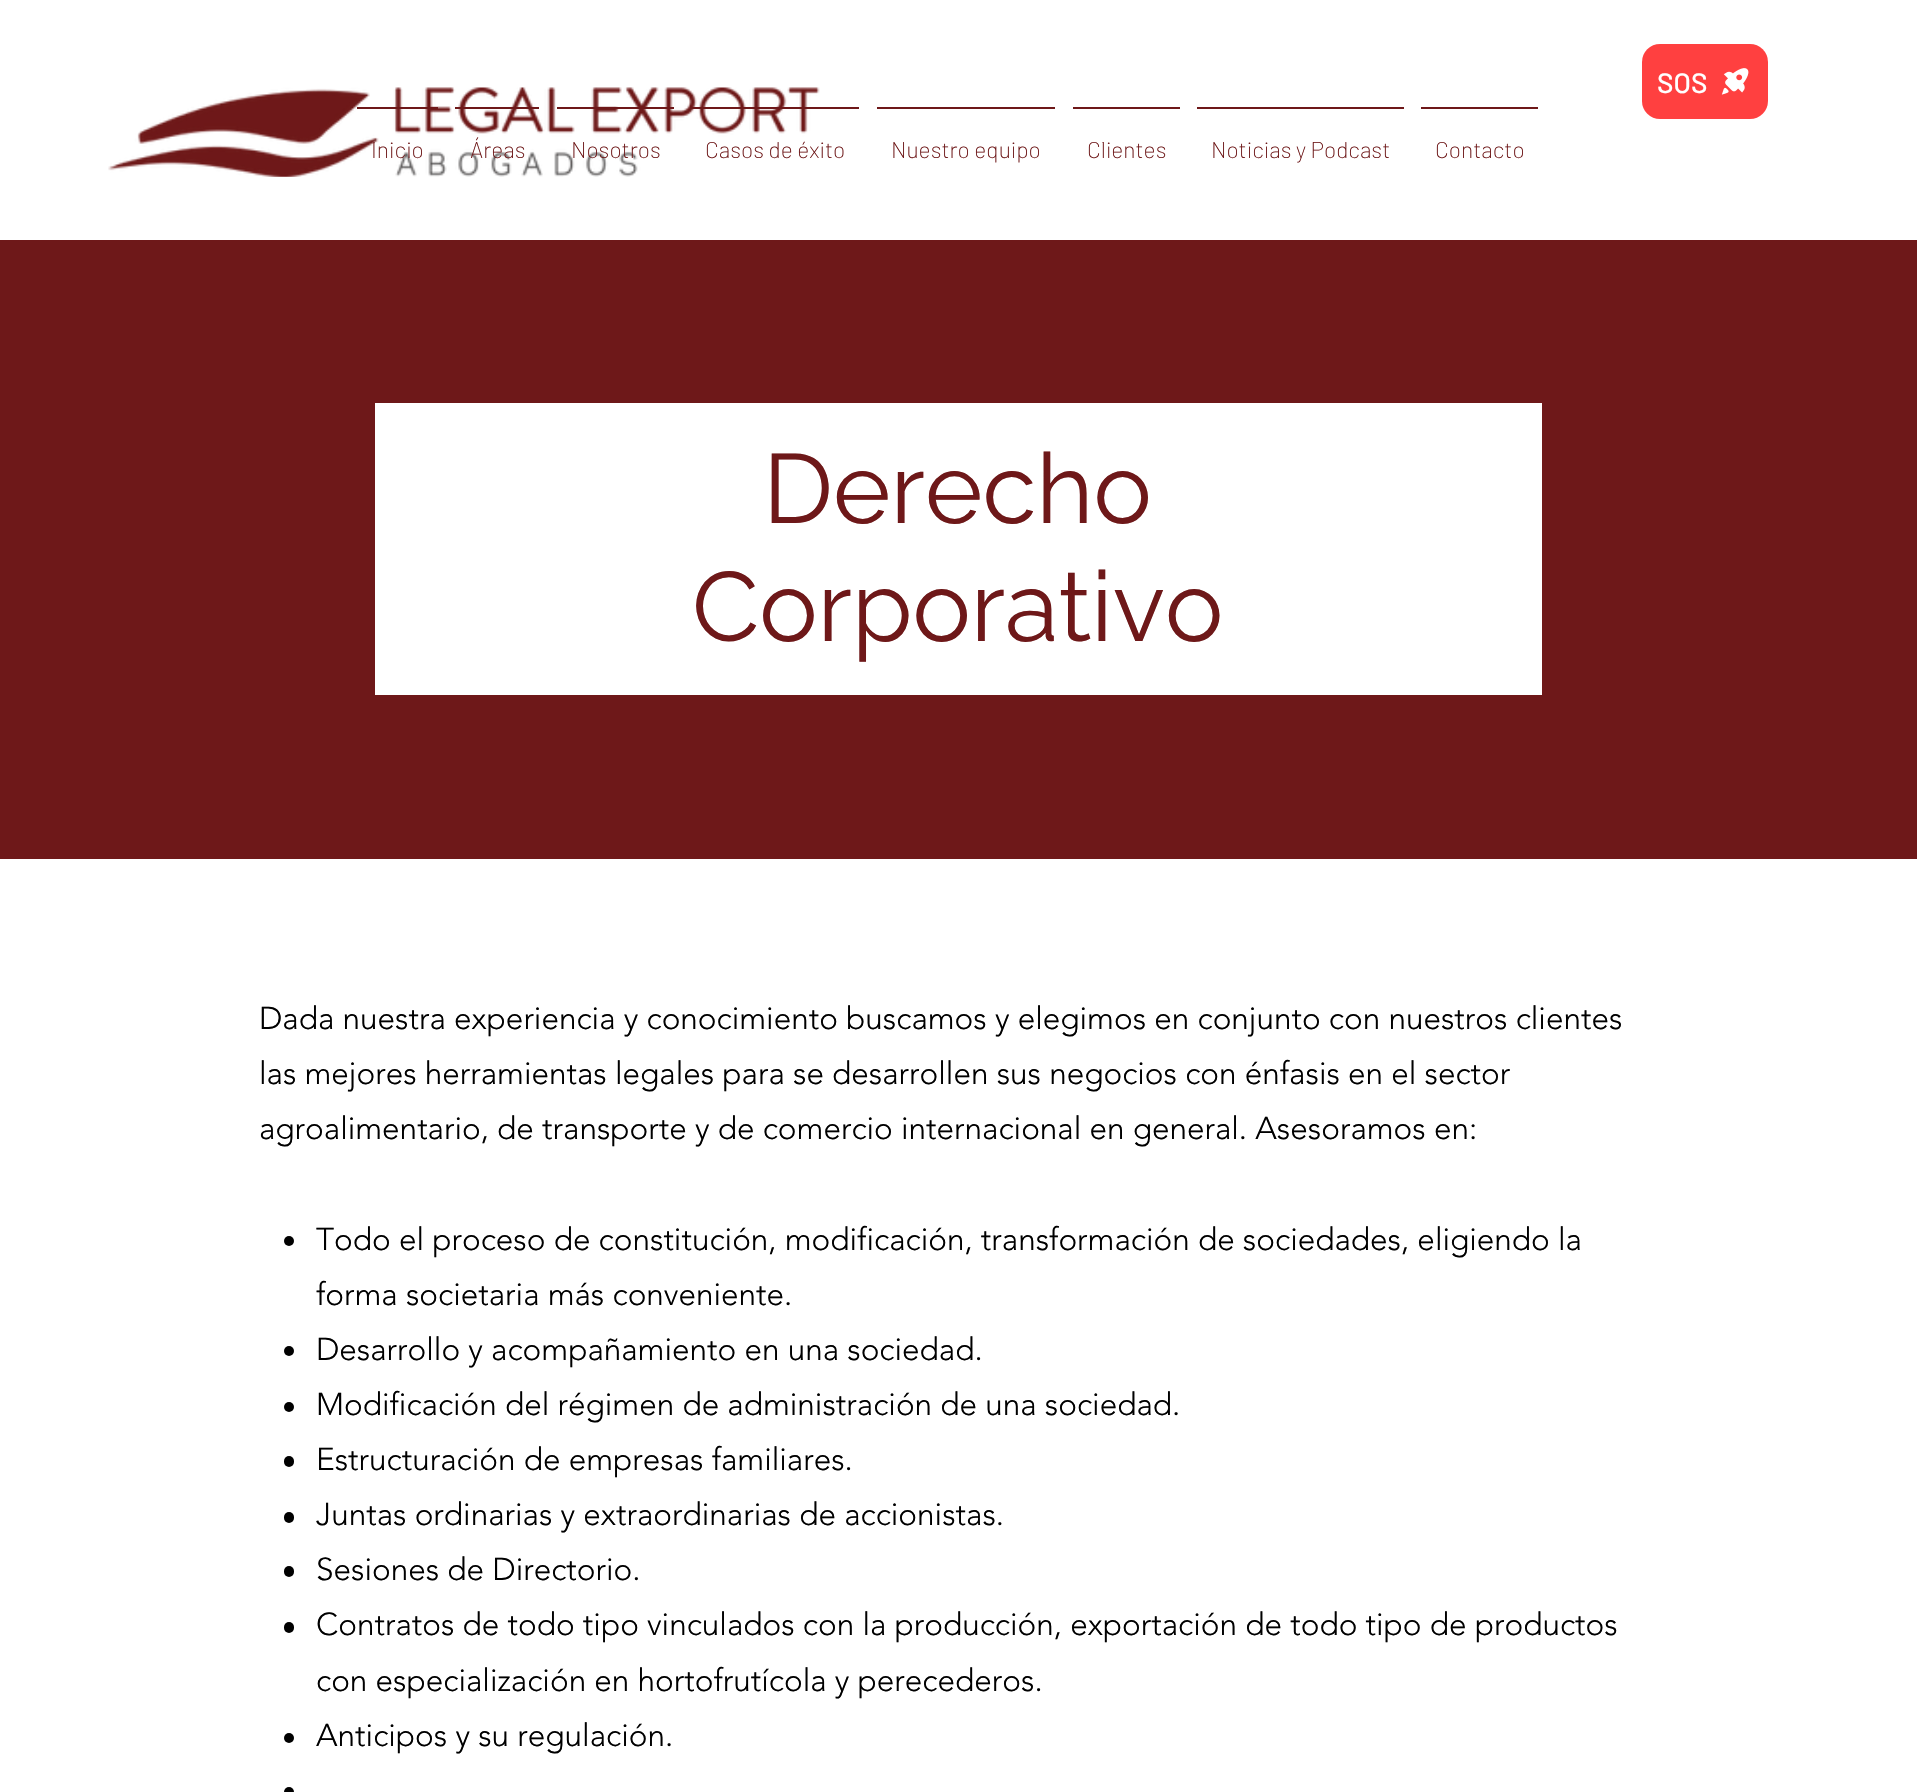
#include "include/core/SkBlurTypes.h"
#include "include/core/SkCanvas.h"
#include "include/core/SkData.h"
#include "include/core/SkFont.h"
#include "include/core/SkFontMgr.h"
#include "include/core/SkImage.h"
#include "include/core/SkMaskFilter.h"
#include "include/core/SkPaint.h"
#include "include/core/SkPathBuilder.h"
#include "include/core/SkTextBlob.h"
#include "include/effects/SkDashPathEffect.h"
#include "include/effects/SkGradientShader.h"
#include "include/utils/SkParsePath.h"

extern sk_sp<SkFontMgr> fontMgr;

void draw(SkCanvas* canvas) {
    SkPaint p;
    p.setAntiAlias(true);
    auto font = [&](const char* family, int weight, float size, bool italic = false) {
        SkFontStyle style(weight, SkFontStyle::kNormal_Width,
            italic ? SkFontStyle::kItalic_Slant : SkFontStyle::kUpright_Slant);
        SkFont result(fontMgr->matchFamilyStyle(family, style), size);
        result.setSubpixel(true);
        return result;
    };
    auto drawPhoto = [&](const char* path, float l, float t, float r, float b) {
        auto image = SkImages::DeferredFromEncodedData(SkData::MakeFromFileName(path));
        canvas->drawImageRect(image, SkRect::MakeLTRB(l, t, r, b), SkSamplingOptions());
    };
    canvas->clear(0xFFFFFFFF);
    p.setColor(0xFFFF4040);
    canvas->drawRoundRect(SkRect::MakeLTRB(1642, 44, 1768, 119), 18, 18, p);
    auto font1 = font("Barlow", 500, 28);
    p.setColor(0xFFFFFFFF);
    canvas->drawString("SOS", 1657, 93, font1, p);
    drawPhoto("media/1.png", 1721, 68, 1749, 95);
    drawPhoto("media/2.png", 108, 87, 820, 177);
    p.setColor(0xFF6E1819);
    canvas->drawRect(SkRect::MakeLTRB(357, 107, 438, 109), p);
    auto font2 = font("Barlow", 200, 22.75f);
    canvas->drawString("Inicio", 371, 158, font2, p);
    canvas->drawRect(SkRect::MakeLTRB(455, 107, 539, 109), p);
    canvas->drawString("Áreas", 470, 158, font2, p);
    canvas->drawRect(SkRect::MakeLTRB(557, 107, 674, 109), p);
    canvas->drawString("Nosotros", 571, 158, font2, p);
    canvas->drawRect(SkRect::MakeLTRB(691, 107, 859, 109), p);
    canvas->drawString("Casos de éxito", 705, 158, font2, p);
    canvas->drawRect(SkRect::MakeLTRB(877, 107, 1055, 109), p);
    canvas->drawString("Nuestro equipo", 891, 158, font2, p);
    canvas->drawRect(SkRect::MakeLTRB(1073, 107, 1180, 109), p);
    canvas->drawString("Clientes", 1087, 158, font2, p);
    canvas->drawRect(SkRect::MakeLTRB(1197, 107, 1404, 109), p);
    canvas->drawString("Noticias y Podcast", 1211, 158, font2, p);
    canvas->drawRect(SkRect::MakeLTRB(1421, 107, 1538, 109), p);
    canvas->drawString("Contacto", 1435, 158, font2, p);
    canvas->drawRect(SkRect::MakeLTRB(0, 240, 1917, 859), p);
    p.setColor(0xFFFFFFFF);
    canvas->drawRect(SkRect::MakeLTRB(375, 403, 1542, 695), p);
    auto font3 = font("Raleway", 400, 98);
    p.setColor(0xFF6E1819);
    canvas->drawString("Derecho", 763, 523, font3, p);
    canvas->drawString("Corporativo", 692, 641, font3, p);
    auto font4 = font("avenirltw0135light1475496", 300, 31.5f);
    p.setColor(0xFF000000);
    {
        const struct { const char* s; float x, y; } items[] = {
            {"Dada nuestra experiencia y conocimiento buscamos y elegimos en conjunto con nuestros clientes", 259, 1029},
            {"las mejores herramientas legales para se desarrollen sus negocios con énfasis en el sector", 259, 1084},
            {"agroalimentario, de transporte y de comercio internacional en general. Asesoramos en:", 259, 1139},
        };
        for (auto [s, x, y] : items) {
            canvas->drawString(s, x, y, font4, p);
        }
    }
    canvas->drawCircle(289, 1241, 5, p);
    canvas->drawString("Todo el proceso de constitución, modificación, transformación de sociedades, eligiendo la", 316, 1250, font4, p);
    canvas->drawString("forma societaria más conveniente.", 316, 1305, font4, p);
    canvas->drawCircle(289, 1351, 5, p);
    canvas->drawString("Desarrollo y acompañamiento en una sociedad.", 316, 1360, font4, p);
    canvas->drawCircle(289, 1407, 5, p);
    canvas->drawString("Modificación del régimen de administración de una sociedad.", 316, 1415, font4, p);
    canvas->drawRoundRect(SkRect::MakeLTRB(284, 1456, 294, 1467), 5, 5, p);
    canvas->drawString("Estructuración de empresas familiares.", 316, 1470, font4, p);
    canvas->drawRoundRect(SkRect::MakeLTRB(284, 1512, 294, 1523), 5, 5, p);
    canvas->drawString("Juntas ordinarias y extraordinarias de accionistas.", 316, 1525, font4, p);
    canvas->drawRoundRect(SkRect::MakeLTRB(284, 1566, 294, 1577), 5, 5, p);
    canvas->drawString("Sesiones de Directorio.", 316, 1580, font4, p);
    canvas->drawRoundRect(SkRect::MakeLTRB(284, 1622, 294, 1633), 5, 5, p);
    canvas->drawString("Contratos de todo tipo vinculados con la producción, exportación de todo tipo de productos", 316, 1635, font4, p);
    canvas->drawString("con especialización en hortofrutícola y perecederos.", 316, 1691, font4, p);
    canvas->drawCircle(289, 1738, 5, p);
    canvas->drawString("Anticipos y su regulación.", 316, 1746, font4, p);
    canvas->drawCircle(289, 1792, 5, p);
}
